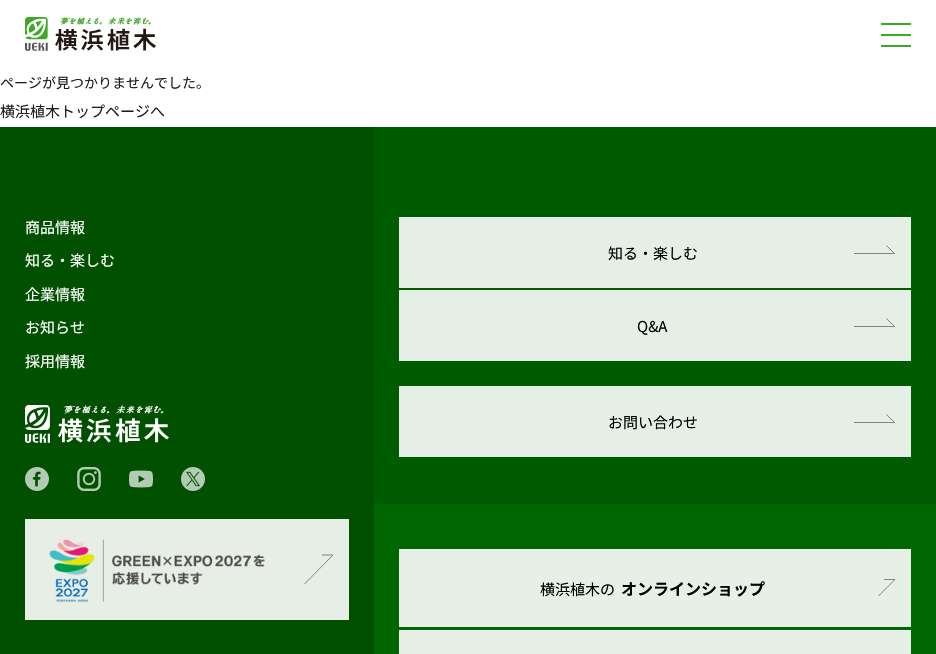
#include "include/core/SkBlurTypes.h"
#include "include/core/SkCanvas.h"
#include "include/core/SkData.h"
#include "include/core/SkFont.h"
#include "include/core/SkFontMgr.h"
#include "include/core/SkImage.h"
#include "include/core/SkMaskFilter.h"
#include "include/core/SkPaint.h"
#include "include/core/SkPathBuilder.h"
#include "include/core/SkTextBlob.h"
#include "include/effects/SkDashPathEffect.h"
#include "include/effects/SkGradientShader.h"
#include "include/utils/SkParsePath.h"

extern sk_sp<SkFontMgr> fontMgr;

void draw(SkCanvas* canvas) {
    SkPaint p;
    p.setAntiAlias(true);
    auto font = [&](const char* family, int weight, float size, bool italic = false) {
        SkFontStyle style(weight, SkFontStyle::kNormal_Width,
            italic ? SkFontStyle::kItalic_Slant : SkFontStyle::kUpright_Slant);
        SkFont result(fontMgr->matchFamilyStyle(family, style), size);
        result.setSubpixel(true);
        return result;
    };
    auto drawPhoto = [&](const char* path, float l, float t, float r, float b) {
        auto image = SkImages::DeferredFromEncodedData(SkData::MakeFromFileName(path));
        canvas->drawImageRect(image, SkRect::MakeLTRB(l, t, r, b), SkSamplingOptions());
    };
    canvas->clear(0xFFFFFFFF);
    drawPhoto("media/1.png", 25, 17, 156, 51);
    {
        const struct { float l, t, r, b; SkColor color; } items[] = {
            {881, 23, 911, 25, 0xFF3FA927},
            {881, 34, 911, 36, 0xFF3FA927},
            {881, 45, 911, 47, 0xFF3FA927},
        };
        for (auto [l, t, r, b, color] : items) {
            p.setColor(color);
            canvas->drawRect(SkRect::MakeLTRB(l, t, r, b), p);
        }
    }
    auto font1 = font("Noto Sans JP", 400, 14);
    p.setColor(0xFF1E1E1E);
    canvas->drawString("ページが見つかりませんでした。", 0, 88, font1, p);
    auto font2 = font("Noto Sans JP", 400, 15);
    canvas->drawString("横浜植木トップページへ", 0, 117, font2, p);
    p.setColor(0xFF005000);
    canvas->drawRect(SkRect::MakeLTRB(0, 127, 374, 654), p);
    p.setColor(0xFFFFFFFF);
    {
        const struct { const char* s; float x, y; } items[] = {
            {"商品情報", 25, 233},
            {"知る・楽しむ", 25, 266},
            {"企業情報", 25, 300},
            {"お知らせ", 25, 333},
            {"採用情報", 25, 367},
        };
        for (auto [s, x, y] : items) {
            canvas->drawString(s, x, y, font2, p);
        }
    }
    drawPhoto("media/2.png", 25, 405, 169, 443);
    drawPhoto("media/3.png", 25, 467, 49, 491);
    drawPhoto("media/4.png", 77, 467, 101, 491);
    drawPhoto("media/5.png", 129, 470, 153, 488);
    drawPhoto("media/6.png", 181, 467, 205, 491);
    p.setColor(0xFFE6EEE6);
    canvas->drawRect(SkRect::MakeLTRB(25, 519, 349, 620), p);
    drawPhoto("media/7.png", 49, 539, 265, 603);
    p.setStyle(SkPaint::kStroke_Style);
    p.setStrokeWidth(1);
    p.setColor(0xFF848484);
    canvas->drawPath(SkPathBuilder().moveTo(322, 555).lineTo(333, 555).lineTo(304.5f, 584).detach(), p);
    p.setStyle(SkPaint::kFill_Style);
    p.setColor(0xFF005C00);
    canvas->drawRect(SkRect::MakeLTRB(374, 127, 936, 504), p);
    p.setColor(0xFFE6EFE6);
    canvas->drawRect(SkRect::MakeLTRB(399, 217, 911, 288), p);
    p.setColor(0xFF000000);
    canvas->drawString("知る・楽しむ", 608, 259, font2, p);
    p.setStyle(SkPaint::kStroke_Style);
    p.setColor(0xFF848484);
    canvas->drawPath(SkPathBuilder().moveTo(886.5f, 245.5f).lineTo(894.5f, 253.5f).lineTo(854, 253.5f).detach(), p);
    p.setStyle(SkPaint::kFill_Style);
    p.setColor(0xFFE6EFE6);
    canvas->drawRect(SkRect::MakeLTRB(399, 290, 911, 361), p);
    p.setColor(0xFF000000);
    canvas->drawString("Q&A", 637, 332, font2, p);
    p.setStyle(SkPaint::kStroke_Style);
    p.setColor(0xFF848484);
    canvas->drawPath(SkPathBuilder().moveTo(886.5f, 318.5f).lineTo(894.5f, 326.5f).lineTo(854, 326.5f).detach(), p);
    p.setStyle(SkPaint::kFill_Style);
    p.setColor(0xFFE6EFE6);
    canvas->drawRect(SkRect::MakeLTRB(399, 386, 911, 457), p);
    p.setColor(0xFF000000);
    canvas->drawString("お問い合わせ", 608, 428, font2, p);
    p.setStyle(SkPaint::kStroke_Style);
    p.setColor(0xFF848484);
    canvas->drawPath(SkPathBuilder().moveTo(886.5f, 414.5f).lineTo(894.5f, 422.5f).lineTo(854, 422.5f).detach(), p);
    p.setStyle(SkPaint::kFill_Style);
    p.setColor(0xFF006600);
    canvas->drawRect(SkRect::MakeLTRB(374, 504, 936, 654), p);
    p.setColor(0xFFE6F0E6);
    canvas->drawRect(SkRect::MakeLTRB(399, 549, 911, 627), p);
    p.setColor(0xFF000000);
    canvas->drawString("横浜植木の", 540, 595, font2, p);
    auto font3 = font("Noto Sans JP", 700, 16);
    canvas->drawString("オンラインショップ", 621, 595, font3, p);
    p.setStyle(SkPaint::kStroke_Style);
    p.setColor(0xFF848484);
    canvas->drawPath(SkPathBuilder().moveTo(884, 579.5f).lineTo(895, 579.5f).lineTo(878.5f, 596).detach(), p);
    p.setStyle(SkPaint::kFill_Style);
    p.setColor(0xFFE6F0E6);
    canvas->drawRect(SkRect::MakeLTRB(399, 630, 911, 654), p);
}
